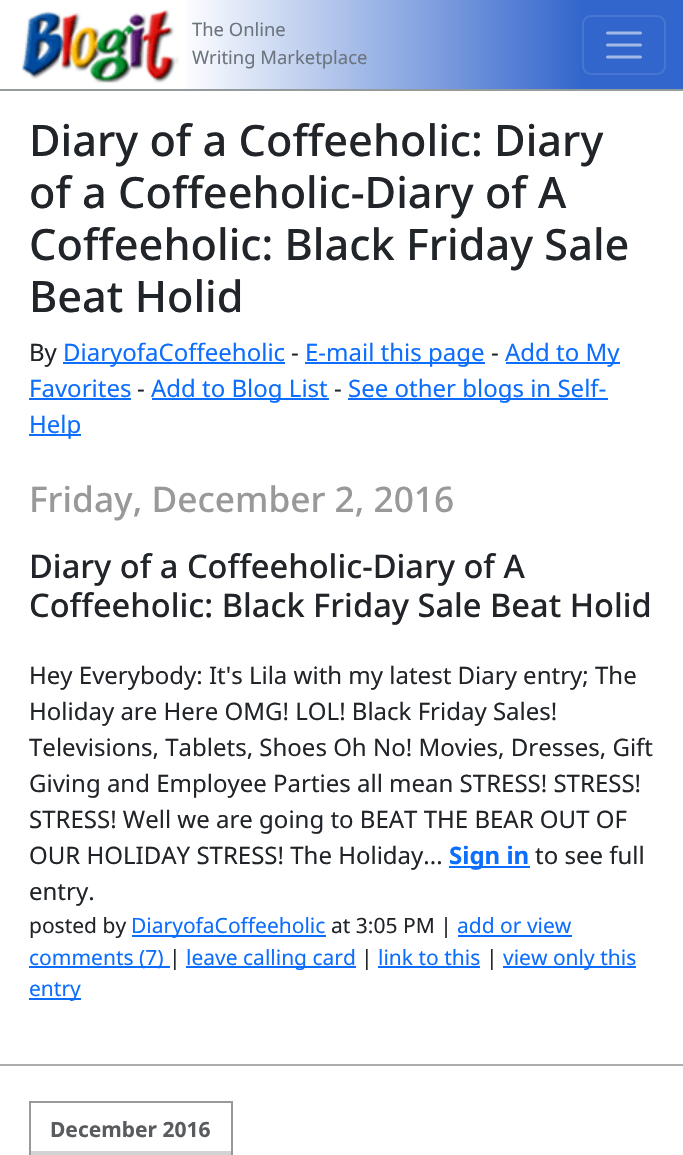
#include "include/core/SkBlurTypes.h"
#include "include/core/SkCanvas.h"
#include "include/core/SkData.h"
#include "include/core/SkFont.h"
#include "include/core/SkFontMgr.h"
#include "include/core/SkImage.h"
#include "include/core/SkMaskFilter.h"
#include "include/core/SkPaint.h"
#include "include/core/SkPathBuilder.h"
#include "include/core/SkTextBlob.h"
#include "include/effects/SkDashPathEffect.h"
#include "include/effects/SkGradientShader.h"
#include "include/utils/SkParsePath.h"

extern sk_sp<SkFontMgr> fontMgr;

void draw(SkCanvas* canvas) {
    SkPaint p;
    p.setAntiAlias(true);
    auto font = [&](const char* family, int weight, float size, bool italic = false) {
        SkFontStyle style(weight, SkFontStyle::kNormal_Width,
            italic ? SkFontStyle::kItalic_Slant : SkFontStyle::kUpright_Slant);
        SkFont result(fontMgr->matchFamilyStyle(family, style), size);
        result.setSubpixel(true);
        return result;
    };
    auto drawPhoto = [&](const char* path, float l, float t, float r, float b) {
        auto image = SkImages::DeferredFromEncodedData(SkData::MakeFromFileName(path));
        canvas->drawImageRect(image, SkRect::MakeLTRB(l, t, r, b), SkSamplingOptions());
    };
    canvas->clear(0xFFFFFFFF);
    p.setColor(0xFF3366CC);
    canvas->drawRect(SkRect::MakeLTRB(582, 0, 683, 89), p);
    p.setColor(0xFF939B9D);
    canvas->drawRect(SkRect::MakeLTRB(0, 89, 683, 91), p);
    drawPhoto("media/1.png", 22, 9, 179, 83);
    {
        const SkColor colors[] = {0xFFFFFFFF, 0xFF3366CC};
        const float stops[] = {0, 1};
        const SkPoint ends[] = {{180, 44}, {582, 44}};
        p.setShader(SkGradientShader::MakeLinear(ends, colors, stops, 2, SkTileMode::kClamp));
        p.setAlpha(255);
    }
    canvas->drawRect(SkRect::MakeLTRB(185, 0, 582, 89), p);
    auto font1 = font("Noto Sans", 400, 18.4f);
    p.setShader(nullptr);
    p.setColor(0xFF6C757D);
    canvas->drawString("The Online", 192, 36, font1, p);
    canvas->drawString("Writing Marketplace", 192, 64, font1, p);
    p.setStyle(SkPaint::kStroke_Style);
    p.setStrokeWidth(2);
    p.setColor(0xFF4775D1);
    canvas->drawRoundRect(SkRect::MakeLTRB(583, 16, 665, 74), 8, 8, p);
    p.setStrokeWidth(3);
    p.setStrokeCap(SkPaint::kRound_Cap);
    p.setColor(0xFFA3BAE8);
    canvas->drawPath(SkPathBuilder().moveTo(607.5f, 33).lineTo(640.5f, 33).moveTo(607.5f, 45).lineTo(640.5f, 45).moveTo(607.5f, 57).lineTo(640.5f, 57).detach(), p);
    auto font2 = font("Noto Sans", 500, 43.25f);
    p.setStyle(SkPaint::kFill_Style);
    p.setColor(0xFF212529);
    {
        const struct { const char* s; float x, y; } items[] = {
            {"Diary of a Coffeeholic: Diary", 29, 156},
            {"of a Coffeeholic-Diary of A", 29, 208},
            {"Coffeeholic: Black Friday Sale", 29, 260},
            {"Beat Holid", 29, 312},
        };
        for (auto [s, x, y] : items) {
            canvas->drawString(s, x, y, font2, p);
        }
    }
    auto font3 = font("Noto Sans", 400, 24);
    canvas->drawString("By", 29, 361, font3, p);
    p.setColor(0xFF0D6EFD);
    canvas->drawRect(SkRect::MakeLTRB(63, 362, 285, 364), p);
    canvas->drawString("DiaryofaCoffeeholic", 63, 361, font3, p);
    p.setColor(0xFF212529);
    canvas->drawString("-", 291, 361, font3, p);
    p.setColor(0xFF0D6EFD);
    canvas->drawRect(SkRect::MakeLTRB(305, 362, 485, 364), p);
    canvas->drawString("E-mail this page", 305, 361, font3, p);
    p.setColor(0xFF212529);
    canvas->drawString("-", 491, 361, font3, p);
    p.setColor(0xFF0D6EFD);
    canvas->drawRect(SkRect::MakeLTRB(506, 362, 620, 364), p);
    canvas->drawString("Add to My", 505, 361, font3, p);
    canvas->drawString("Favorites", 29, 397, font3, p);
    canvas->drawRect(SkRect::MakeLTRB(29, 398, 131, 400), p);
    p.setColor(0xFF212529);
    canvas->drawString("-", 137, 397, font3, p);
    p.setColor(0xFF0D6EFD);
    canvas->drawRect(SkRect::MakeLTRB(152, 398, 329, 400), p);
    canvas->drawString("Add to Blog List", 151, 397, font3, p);
    p.setColor(0xFF212529);
    canvas->drawString("-", 334, 397, font3, p);
    p.setColor(0xFF0D6EFD);
    canvas->drawRect(SkRect::MakeLTRB(348, 398, 608, 400), p);
    canvas->drawString("See other blogs in Self-", 348, 397, font3, p);
    canvas->drawRect(SkRect::MakeLTRB(29, 434, 81, 436), p);
    canvas->drawString("Help", 29, 433, font3, p);
    auto font4 = font("Noto Sans", 500, 35.25f);
    p.setColor(0xFF999999);
    canvas->drawString("Friday, December 2, 2016", 29, 512, font4, p);
    auto font5 = font("Noto Sans", 500, 32.6f);
    p.setColor(0xFF212529);
    canvas->drawString("Diary of a Coffeeholic-Diary of A", 29, 578, font5, p);
    canvas->drawString("Coffeeholic: Black Friday Sale Beat Holid", 29, 617, font5, p);
    {
        const struct { const char* s; float x, y; } items[] = {
            {"Hey Everybody: It's Lila with my latest Diary entry; The", 29, 684},
            {"Holiday are Here OMG! LOL! Black Friday Sales!", 29, 720},
            {"Televisions, Tablets, Shoes Oh No! Movies, Dresses, Gift", 29, 756},
            {"Giving and Employee Parties all mean STRESS! STRESS!", 29, 792},
            {"STRESS! Well we are going to BEAT THE BEAR OUT OF", 29, 828},
            {"OUR HOLIDAY STRESS! The Holiday...", 29, 864},
        };
        for (auto [s, x, y] : items) {
            canvas->drawString(s, x, y, font3, p);
        }
    }
    p.setColor(0xFF0D6EFD);
    canvas->drawRect(SkRect::MakeLTRB(449, 866, 530, 868), p);
    auto font6 = font("Noto Sans", 700, 24);
    canvas->drawString("Sign in", 449, 864, font6, p);
    p.setColor(0xFF212529);
    canvas->drawString("to see full", 535, 864, font3, p);
    canvas->drawString("entry.", 29, 900, font3, p);
    auto font7 = font("Noto Sans", 400, 21);
    canvas->drawString("posted by", 29, 933, font7, p);
    p.setColor(0xFF0D6EFD);
    canvas->drawRect(SkRect::MakeLTRB(132, 935, 326, 937), p);
    canvas->drawString("DiaryofaCoffeeholic", 131, 933, font7, p);
    p.setColor(0xFF212529);
    canvas->drawString("at 3:05 PM |", 331, 933, font7, p);
    p.setColor(0xFF0D6EFD);
    canvas->drawString("add or view", 457, 933, font7, p);
    canvas->drawRect(SkRect::MakeLTRB(458, 935, 572, 937), p);
    canvas->drawRect(SkRect::MakeLTRB(29, 966, 170, 968), p);
    canvas->drawString("comments (7)", 29, 965, font7, p);
    p.setColor(0xFF212529);
    canvas->drawString("|", 169, 965, font7, p);
    p.setColor(0xFF0D6EFD);
    canvas->drawRect(SkRect::MakeLTRB(186, 966, 356, 968), p);
    canvas->drawString("leave calling card", 186, 965, font7, p);
    p.setColor(0xFF212529);
    canvas->drawString("|", 361, 965, font7, p);
    p.setColor(0xFF0D6EFD);
    canvas->drawString("link to this", 378, 965, font7, p);
    canvas->drawRect(SkRect::MakeLTRB(378, 966, 480, 968), p);
    p.setColor(0xFF212529);
    canvas->drawString("|", 486, 965, font7, p);
    p.setColor(0xFF0D6EFD);
    canvas->drawRect(SkRect::MakeLTRB(503, 966, 636, 968), p);
    canvas->drawString("view only this", 503, 965, font7, p);
    canvas->drawRect(SkRect::MakeLTRB(29, 998, 81, 1000), p);
    canvas->drawString("entry", 29, 996, font7, p);
    {
        const struct { float l, t, r, b; SkColor color; } items[] = {
            {0, 1064, 683, 1066, 0xFFADADAD},
            {29, 1101, 233, 1103, 0xFF999999},
            {231, 1101, 233, 1155, 0xFF999999},
            {30, 1151, 231, 1155, 0xFFD3D3D3},
            {29, 1101, 31, 1155, 0xFF999999},
        };
        for (auto [l, t, r, b, color] : items) {
            p.setColor(color);
            canvas->drawRect(SkRect::MakeLTRB(l, t, r, b), p);
        }
    }
    auto font8 = font("Noto Sans", 700, 21);
    p.setColor(0xFF595C5F);
    canvas->drawString("December 2016", 50, 1137, font8, p);
}
